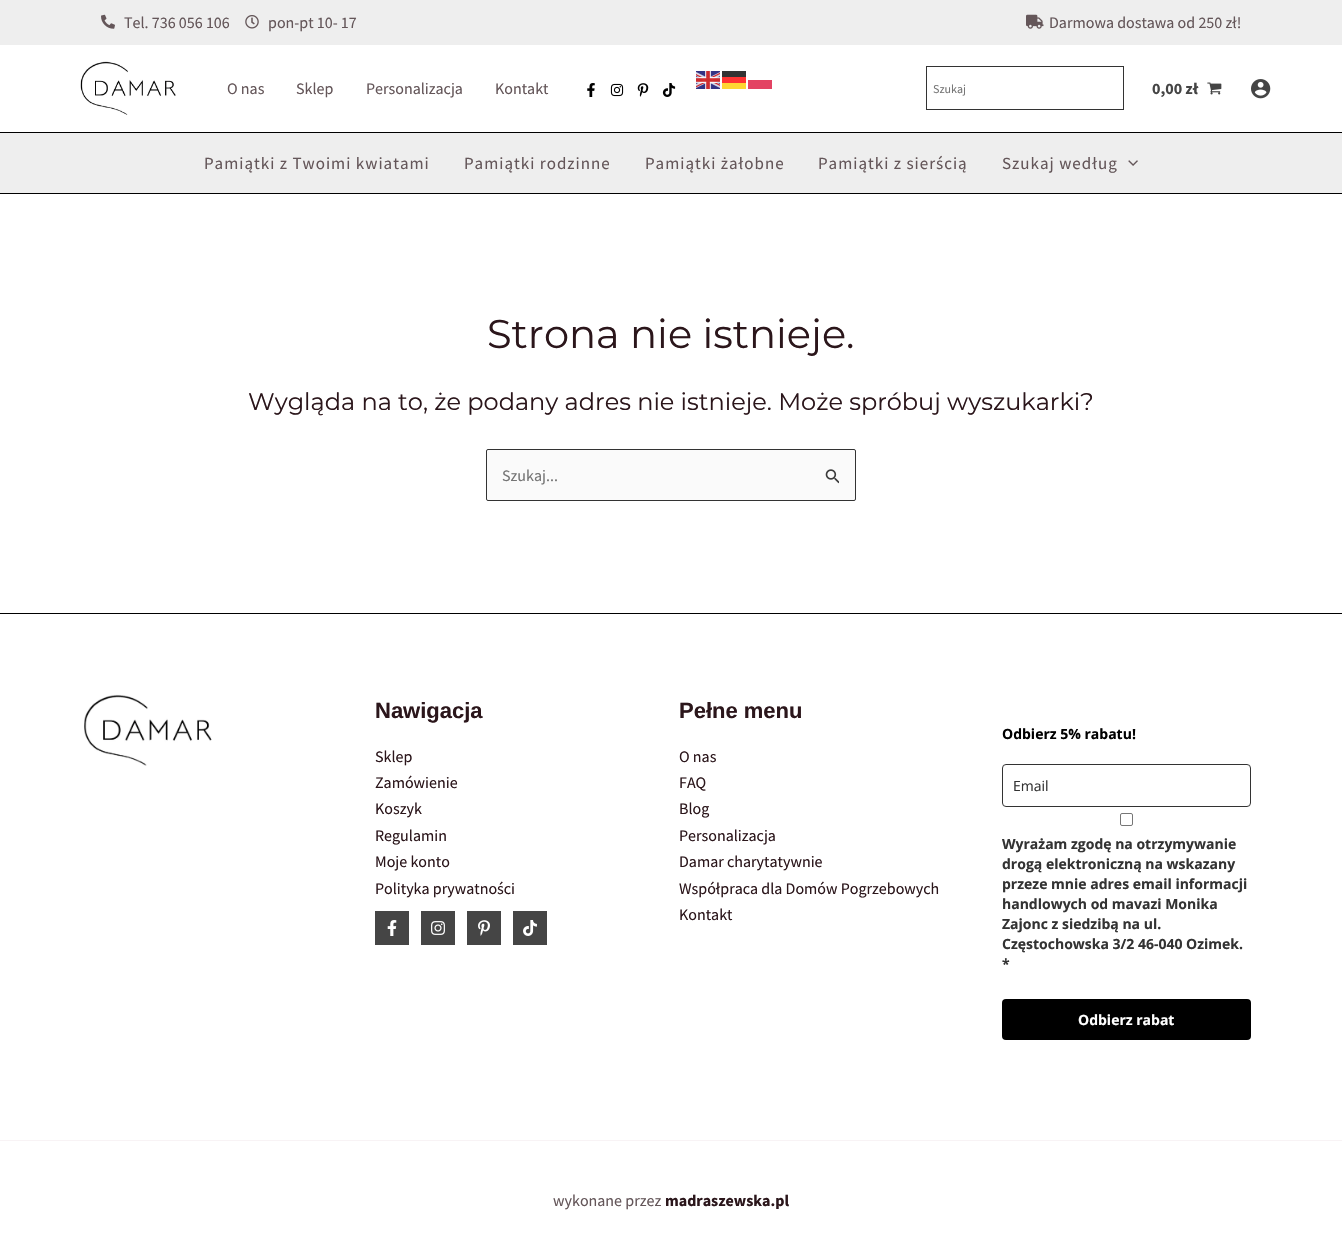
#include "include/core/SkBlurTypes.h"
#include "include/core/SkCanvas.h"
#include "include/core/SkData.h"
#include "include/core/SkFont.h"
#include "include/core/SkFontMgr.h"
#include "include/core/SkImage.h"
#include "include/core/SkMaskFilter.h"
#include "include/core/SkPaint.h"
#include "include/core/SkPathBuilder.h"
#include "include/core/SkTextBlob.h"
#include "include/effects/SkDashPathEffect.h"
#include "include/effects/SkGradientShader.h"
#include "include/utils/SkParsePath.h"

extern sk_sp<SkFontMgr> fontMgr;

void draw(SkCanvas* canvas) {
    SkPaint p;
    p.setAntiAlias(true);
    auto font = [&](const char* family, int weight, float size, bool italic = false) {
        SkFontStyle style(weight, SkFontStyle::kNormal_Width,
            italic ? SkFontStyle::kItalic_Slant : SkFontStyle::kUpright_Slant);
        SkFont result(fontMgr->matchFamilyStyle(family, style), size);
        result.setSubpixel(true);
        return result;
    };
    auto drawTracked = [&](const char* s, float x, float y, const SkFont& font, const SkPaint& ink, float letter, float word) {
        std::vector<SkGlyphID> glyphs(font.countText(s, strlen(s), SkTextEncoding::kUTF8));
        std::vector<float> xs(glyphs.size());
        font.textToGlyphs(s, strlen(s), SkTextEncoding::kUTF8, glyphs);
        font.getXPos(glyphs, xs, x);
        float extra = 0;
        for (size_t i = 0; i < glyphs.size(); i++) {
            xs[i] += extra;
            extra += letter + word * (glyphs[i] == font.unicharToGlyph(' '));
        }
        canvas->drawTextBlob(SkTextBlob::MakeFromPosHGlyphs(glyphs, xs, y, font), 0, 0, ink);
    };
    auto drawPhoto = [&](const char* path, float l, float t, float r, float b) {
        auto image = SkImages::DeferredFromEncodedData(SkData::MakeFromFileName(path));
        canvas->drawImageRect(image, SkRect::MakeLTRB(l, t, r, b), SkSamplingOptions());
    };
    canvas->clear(0xFFFFFFFF);
    p.setColor(0xFFEEEEEE);
    canvas->drawRect(SkRect::MakeLTRB(0, 0, 1342, 45), p);
    drawPhoto("media/1.png", 101, 14, 115, 29);
    auto font1 = font("Source Sans Pro", 400, 16);
    p.setColor(0xFF645659);
    canvas->drawString("Tel. 736 056 106", 124, 28, font1, p);
    drawPhoto("media/2.png", 245, 15, 259, 29);
    canvas->drawString("pon-pt 10- 17", 268, 28, font1, p);
    drawPhoto("media/3.png", 1026, 14, 1044, 29);
    canvas->drawString("Darmowa dostawa od 250 zł!", 1049, 28, font1, p);
    p.setColor(0xFF000000);
    canvas->drawRect(SkRect::MakeLTRB(0, 132, 1342, 133), p);
    drawPhoto("media/4.png", 80, 61, 176, 115);
    p.setColor(0xFF645659);
    {
        const struct { const char* s; float x, y; } items[] = {
            {"O nas", 227, 94},
            {"Sklep", 296, 94},
            {"Personalizacja", 366, 94},
            {"Kontakt", 495, 94},
        };
        for (auto [s, x, y] : items) {
            canvas->drawString(s, x, y, font1, p);
        }
    }
    drawPhoto("media/5.png", 587, 83, 595, 97);
    drawPhoto("media/6.png", 610, 83, 624, 97);
    drawPhoto("media/7.png", 637, 83, 649, 97);
    drawPhoto("media/8.png", 662, 83, 676, 97);
    drawPhoto("media/9.png", 696, 71, 720, 89);
    {
        const struct { float l, t, r, b; SkColor color; } items[] = {
            {722, 71, 746, 77, 0xFF333333},
            {722, 77, 746, 83, 0xFFFF3333},
            {748, 80, 772, 89, 0xFFE34363},
            {722, 83, 746, 89, 0xFFFFD633},
        };
        for (auto [l, t, r, b, color] : items) {
            p.setColor(color);
            canvas->drawRect(SkRect::MakeLTRB(l, t, r, b), p);
        }
    }
    p.setStyle(SkPaint::kStroke_Style);
    p.setStrokeWidth(1);
    p.setColor(0xFF333333);
    canvas->drawRect(SkRect::MakeLTRB(926.5f, 66.5f, 1123.5f, 109.5f), p);
    auto font2 = font("Source Sans Pro", 400, 12);
    p.setStyle(SkPaint::kFill_Style);
    p.setColor(0xFF757575);
    canvas->drawString("Szukaj", 933, 93, font2, p);
    auto font3 = font("Source Sans Pro", 700, 16);
    p.setColor(0xFF454545);
    canvas->drawString("0,00 zł", 1152, 94, font3, p);
    drawPhoto("media/10.png", 1207, 82, 1222, 95);
    drawPhoto("media/11.png", 1251, 79, 1271, 99);
    p.setColor(0xFFEEEEEE);
    canvas->drawRect(SkRect::MakeLTRB(0, 133, 1342, 193), p);
    p.setColor(0xFF000000);
    canvas->drawRect(SkRect::MakeLTRB(0, 193, 1342, 194), p);
    auto font4 = font("Source Sans Pro", 400, 17);
    p.setColor(0xFF645659);
    {
        const struct { const char* s; float x, y; } items[] = {
            {"Pamiątki z Twoimi kwiatami", 204, 169},
            {"Pamiątki rodzinne", 464, 169},
            {"Pamiątki żałobne", 645, 169},
            {"Pamiątki z sierścią", 818, 169},
            {"Szukaj według", 1002, 169},
        };
        for (auto [s, x, y] : items) {
            drawTracked(s, x, y, font4, p, 1, 0);
        }
    }
    drawPhoto("media/12.png", 1128, 160, 1138, 166);
    auto font5 = font("Montserrat", 400, 40);
    p.setColor(0xFF2B161B);
    canvas->drawString("Strona nie istnieje.", 487, 348, font5, p);
    auto font6 = font("Montserrat", 400, 24);
    canvas->drawString("Wygląda na to, że podany adres nie istnieje. Może spróbuj wyszukarki?", 248, 410, font6, p);
    p.setColor(0xFFFAFAFA);
    canvas->drawRoundRect(SkRect::MakeLTRB(486.5f, 449.5f, 855.5f, 500.5f), 1.5f, 1.5f, p);
    p.setStyle(SkPaint::kStroke_Style);
    p.setColor(0xFF333333);
    canvas->drawRoundRect(SkRect::MakeLTRB(486.5f, 449.5f, 855.5f, 500.5f), 1.5f, 1.5f, p);
    p.setStyle(SkPaint::kFill_Style);
    p.setColor(0xFF757575);
    canvas->drawString("Szukaj...", 502, 481, font1, p);
    drawPhoto("media/13.png", 825, 469, 839, 484);
    p.setColor(0xFF000000);
    canvas->drawRect(SkRect::MakeLTRB(0, 613, 1342, 614), p);
    drawPhoto("media/14.png", 84, 694, 212, 766);
    auto font7 = font("Liberation Sans", 700, 22);
    p.setColor(0xFF2B161B);
    canvas->drawString("Nawigacja", 375, 718, font7, p);
    {
        const struct { const char* s; float x, y; } items[] = {
            {"Sklep", 375, 762},
            {"Zamówienie", 375, 788},
            {"Koszyk", 375, 814},
            {"Regulamin", 375, 841},
            {"Moje konto", 375, 867},
            {"Polityka prywatności", 375, 894},
        };
        for (auto [s, x, y] : items) {
            canvas->drawString(s, x, y, font1, p);
        }
    }
    p.setColor(0xFF454545);
    canvas->drawRect(SkRect::MakeLTRB(375, 911, 409, 945), p);
    drawPhoto("media/15.png", 387, 920, 397, 936);
    canvas->drawRect(SkRect::MakeLTRB(421, 911, 455, 945), p);
    drawPhoto("media/16.png", 431, 921, 445, 935);
    canvas->drawRect(SkRect::MakeLTRB(467, 911, 501, 945), p);
    drawPhoto("media/17.png", 478, 920, 490, 936);
    canvas->drawRect(SkRect::MakeLTRB(513, 911, 547, 945), p);
    drawPhoto("media/18.png", 523, 920, 537, 936);
    p.setColor(0xFF2B161B);
    canvas->drawString("Pełne menu", 679, 718, font7, p);
    {
        const struct { const char* s; float x, y; } items[] = {
            {"O nas", 679, 762},
            {"FAQ", 679, 788},
            {"Blog", 679, 814},
            {"Personalizacja", 679, 841},
            {"Damar charytatywnie", 679, 867},
            {"Współpraca dla Domów Pogrzebowych", 679, 894},
            {"Kontakt", 679, 920},
        };
        for (auto [s, x, y] : items) {
            canvas->drawString(s, x, y, font1, p);
        }
    }
    auto font8 = font("Open Sans", 700, 14);
    p.setColor(0xFF000000);
    canvas->drawString("Odbierz 5% rabatu!", 1002, 739, font8, p);
    p.setStyle(SkPaint::kStroke_Style);
    p.setColor(0xFF333333);
    canvas->drawRoundRect(SkRect::MakeLTRB(1002.5f, 764.5f, 1250.5f, 806.5f), 3.5f, 3.5f, p);
    auto font9 = font("Open Sans", 400, 14);
    p.setStyle(SkPaint::kFill_Style);
    canvas->drawString("Email", 1013, 791, font9, p);
    p.setStyle(SkPaint::kStroke_Style);
    p.setColor(0xFF767676);
    canvas->drawRoundRect(SkRect::MakeLTRB(1120.5f, 813.5f, 1132.5f, 825.5f), 1.5f, 1.5f, p);
    p.setStyle(SkPaint::kFill_Style);
    p.setColor(0xFF333333);
    {
        const struct { const char* s; float x, y; } items[] = {
            {"Wyrażam zgodę na otrzymywanie", 1002, 849},
            {"drogą elektroniczną na wskazany", 1002, 869},
            {"przeze mnie adres email informacji", 1002, 889},
            {"handlowych od mavazi Monika", 1002, 909},
            {"Zajonc z siedzibą na ul.", 1002, 929},
            {"Częstochowska 3/2 46-040 Ozimek.", 1002, 949},
            {"*", 1002, 969},
        };
        for (auto [s, x, y] : items) {
            canvas->drawString(s, x, y, font8, p);
        }
    }
    p.setColor(0xFF000000);
    canvas->drawRoundRect(SkRect::MakeLTRB(1002, 999, 1251, 1040), 4, 4, p);
    p.setColor(0xFFFFFFFF);
    canvas->drawString("Odbierz rabat", 1078, 1025, font8, p);
    p.setColor(0xFFF8F3F5);
    canvas->drawRect(SkRect::MakeLTRB(0, 1140, 1342, 1141), p);
    p.setColor(0xFF645659);
    canvas->drawString("wykonane przez", 553, 1206, font1, p);
    p.setColor(0xFF2B161B);
    canvas->drawString("madraszewska.pl", 665, 1206, font3, p);
}
